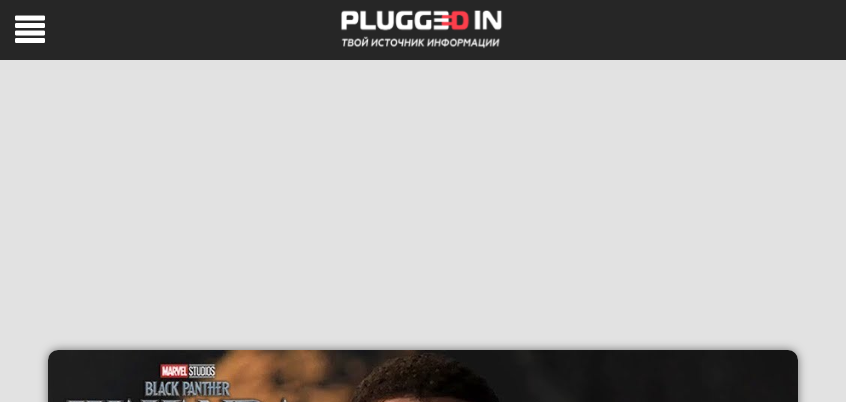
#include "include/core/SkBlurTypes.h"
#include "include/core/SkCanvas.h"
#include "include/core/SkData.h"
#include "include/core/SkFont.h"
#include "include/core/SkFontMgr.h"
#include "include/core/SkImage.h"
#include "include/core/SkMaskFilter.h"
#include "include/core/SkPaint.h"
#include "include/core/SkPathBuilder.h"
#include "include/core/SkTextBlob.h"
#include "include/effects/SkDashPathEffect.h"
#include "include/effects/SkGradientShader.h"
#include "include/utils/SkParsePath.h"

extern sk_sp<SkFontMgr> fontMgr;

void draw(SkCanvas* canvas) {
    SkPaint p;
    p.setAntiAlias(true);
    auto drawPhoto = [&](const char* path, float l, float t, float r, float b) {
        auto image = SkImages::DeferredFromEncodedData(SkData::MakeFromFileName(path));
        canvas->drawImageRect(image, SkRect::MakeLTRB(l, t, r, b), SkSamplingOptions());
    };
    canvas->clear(0xFFE2E2E2);
    p.setColor(0xFF262626);
    canvas->drawRect(SkRect::MakeLTRB(0, 0, 846, 60), p);
    drawPhoto("media/1.png", 15, 15, 45, 43);
    drawPhoto("media/2.png", 341, 10, 503, 49);
    p.setColor(0x80000000);
    p.setMaskFilter(SkMaskFilter::MakeBlur(kNormal_SkBlurStyle, 5));
    canvas->drawRoundRect(SkRect::MakeLTRB(48, 350, 798, 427), 10, 10, p);
    p.setMaskFilter(nullptr);
    p.setColor(0xFFFFFFFF);
    canvas->drawRoundRect(SkRect::MakeLTRB(48, 350, 798, 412), 10, 10, p);
    drawPhoto("media/3.png", 48, 350, 798, 402);
}
